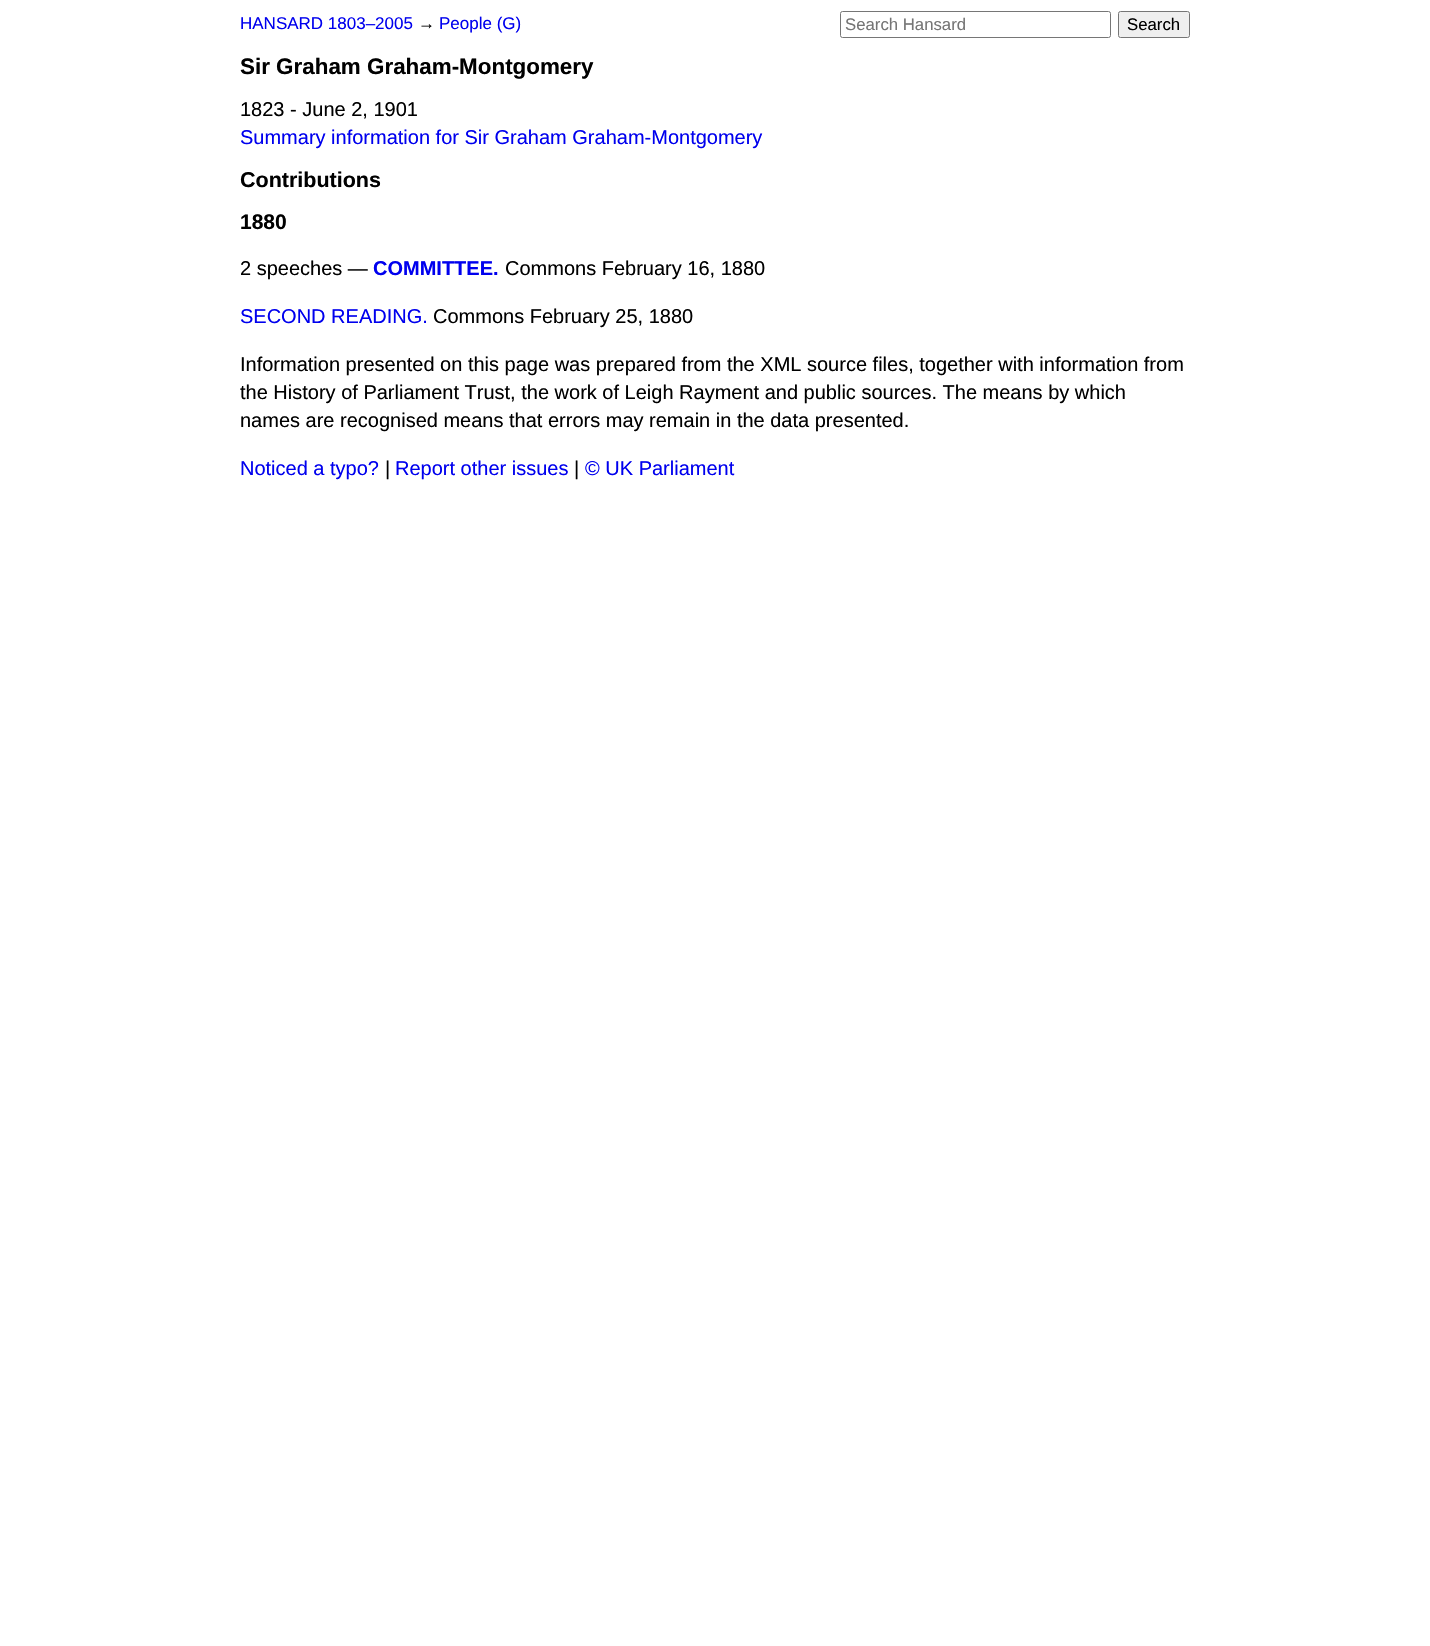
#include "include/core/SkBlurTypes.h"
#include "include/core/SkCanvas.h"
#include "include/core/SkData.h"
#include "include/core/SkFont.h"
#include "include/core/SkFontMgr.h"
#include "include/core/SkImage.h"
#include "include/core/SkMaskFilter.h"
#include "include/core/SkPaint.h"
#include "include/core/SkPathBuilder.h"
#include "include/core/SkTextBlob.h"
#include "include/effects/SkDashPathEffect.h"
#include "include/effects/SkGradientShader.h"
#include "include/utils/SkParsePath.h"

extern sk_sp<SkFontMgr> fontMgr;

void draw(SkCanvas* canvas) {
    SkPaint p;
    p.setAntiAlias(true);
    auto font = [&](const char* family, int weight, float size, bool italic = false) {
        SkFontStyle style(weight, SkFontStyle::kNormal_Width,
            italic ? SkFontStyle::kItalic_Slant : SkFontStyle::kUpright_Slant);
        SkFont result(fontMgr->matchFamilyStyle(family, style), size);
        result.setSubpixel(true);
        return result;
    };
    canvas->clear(0xFFFFFFFF);
    auto font1 = font("Liberation Sans", 400, 17);
    p.setColor(0xFF0000EE);
    canvas->drawString("HANSARD 1803–2005", 240, 29, font1, p);
    p.setColor(0xFF000000);
    canvas->drawString("→", 418, 29, font1, p);
    p.setColor(0xFF0000EE);
    canvas->drawString("People (G)", 439, 29, font1, p);
    p.setStyle(SkPaint::kStroke_Style);
    p.setStrokeWidth(1);
    p.setColor(0xFF767676);
    canvas->drawRoundRect(SkRect::MakeLTRB(840.5f, 11.5f, 1110.5f, 37.5f), 2, 2, p);
    auto font2 = font("Liberation Sans", 400, 16.75f);
    p.setStyle(SkPaint::kFill_Style);
    p.setColor(0xFF757575);
    canvas->drawString("Search Hansard", 845, 30, font2, p);
    p.setColor(0xFFEFEFEF);
    canvas->drawRoundRect(SkRect::MakeLTRB(1118.5f, 11.5f, 1189.5f, 37.5f), 2, 2, p);
    p.setStyle(SkPaint::kStroke_Style);
    p.setColor(0xFF767676);
    canvas->drawRoundRect(SkRect::MakeLTRB(1118.5f, 11.5f, 1189.5f, 37.5f), 2, 2, p);
    p.setStyle(SkPaint::kFill_Style);
    p.setColor(0xFF000000);
    canvas->drawString("Search", 1127, 30, font2, p);
    auto font3 = font("Liberation Sans", 700, 22.4f);
    canvas->drawString("Sir Graham Graham-Montgomery", 240, 74, font3, p);
    auto font4 = font("Liberation Sans", 400, 20);
    canvas->drawString("1823 - June 2, 1901", 240, 116, font4, p);
    p.setColor(0xFF0000EE);
    canvas->drawString("Summary information for Sir Graham Graham-Montgomery", 240, 144, font4, p);
    auto font5 = font("Liberation Sans", 700, 21.5f);
    p.setColor(0xFF000000);
    canvas->drawString("Contributions", 240, 187, font5, p);
    auto font6 = font("Liberation Sans", 700, 21);
    canvas->drawString("1880", 240, 229, font6, p);
    canvas->drawString("2 speeches —", 240, 275, font4, p);
    auto font7 = font("Liberation Sans", 700, 20);
    p.setColor(0xFF0000EE);
    canvas->drawString("COMMITTEE.", 373, 275, font7, p);
    p.setColor(0xFF000000);
    canvas->drawString("Commons February 16, 1880", 505, 275, font4, p);
    p.setColor(0xFF0000EE);
    canvas->drawString("SECOND READING.", 240, 323, font4, p);
    p.setColor(0xFF000000);
    {
        const struct { const char* s; float x, y; } items[] = {
            {"Commons February 25, 1880", 433, 323},
            {"Information presented on this page was prepared from the XML source files, together with information from", 240, 371},
            {"the History of Parliament Trust, the work of Leigh Rayment and public sources. The means by which", 240, 399},
            {"names are recognised means that errors may remain in the data presented.", 240, 427},
        };
        for (auto [s, x, y] : items) {
            canvas->drawString(s, x, y, font4, p);
        }
    }
    p.setColor(0xFF0000EE);
    canvas->drawString("Noticed a typo?", 240, 475, font4, p);
    p.setColor(0xFF000000);
    canvas->drawString("|", 385, 475, font4, p);
    p.setColor(0xFF0000EE);
    canvas->drawString("Report other issues", 395, 475, font4, p);
    p.setColor(0xFF000000);
    canvas->drawString("|", 574, 475, font4, p);
    p.setColor(0xFF0000EE);
    canvas->drawString("© UK Parliament", 585, 475, font4, p);
}
